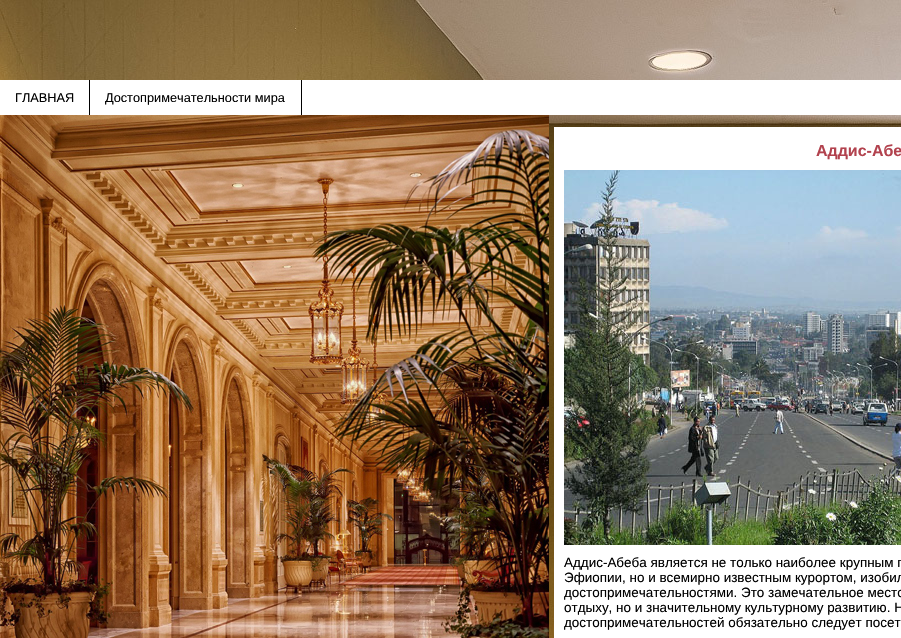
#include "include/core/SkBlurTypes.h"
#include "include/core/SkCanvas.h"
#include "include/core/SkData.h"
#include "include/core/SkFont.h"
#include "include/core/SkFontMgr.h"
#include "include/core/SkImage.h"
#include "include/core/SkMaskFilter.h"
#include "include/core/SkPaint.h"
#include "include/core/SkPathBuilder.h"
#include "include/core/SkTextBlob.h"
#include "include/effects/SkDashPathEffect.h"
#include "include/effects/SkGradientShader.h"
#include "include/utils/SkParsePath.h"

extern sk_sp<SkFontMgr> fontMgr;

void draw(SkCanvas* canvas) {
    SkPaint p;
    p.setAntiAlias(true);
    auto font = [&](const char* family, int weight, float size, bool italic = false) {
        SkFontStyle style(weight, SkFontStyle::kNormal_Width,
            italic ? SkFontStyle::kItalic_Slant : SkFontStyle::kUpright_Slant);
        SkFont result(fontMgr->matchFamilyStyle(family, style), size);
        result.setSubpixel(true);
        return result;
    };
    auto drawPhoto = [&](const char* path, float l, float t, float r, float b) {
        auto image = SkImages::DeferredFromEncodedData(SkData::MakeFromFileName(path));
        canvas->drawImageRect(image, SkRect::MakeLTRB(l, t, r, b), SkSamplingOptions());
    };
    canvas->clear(0xFFFFFFFF);
    drawPhoto("media/1.png", 0, 0, 901, 638);
    p.setColor(0xFFFFFFFF);
    canvas->drawRect(SkRect::MakeLTRB(0, 80, 901, 115), p);
    p.setColor(0xFF000000);
    canvas->drawRect(SkRect::MakeLTRB(89, 80, 90, 115), p);
    auto font1 = font("Liberation Sans", 400, 12.75f);
    canvas->drawString("ГЛАВНАЯ", 15, 102, font1, p);
    canvas->drawRect(SkRect::MakeLTRB(301, 80, 302, 115), p);
    canvas->drawString("Достопримечательности мира", 105, 102, font1, p);
    drawPhoto("media/2.png", 0, 115, 549, 638);
    p.setColor(0xFFFFFFFF);
    canvas->drawRect(SkRect::MakeLTRB(554, 127, 901, 638), p);
    auto font2 = font("Liberation Sans", 700, 16);
    p.setColor(0xFFB2424E);
    canvas->drawString("Аддис-Абе", 816, 156, font2, p);
    drawPhoto("media/3.png", 564, 170, 901, 545);
    auto font3 = font("Liberation Sans", 400, 13.45f);
    p.setColor(0xFF000000);
    {
        const struct { const char* s; float x, y; } items[] = {
            {"Аддис-Абеба является не только наиболее крупным п", 564, 567},
            {"Эфиопии, но и всемирно известным курортом, изобил", 564, 582},
            {"достопримечательностями. Это замечательное место", 564, 597},
            {"отдыху, но и значительному культурному развитию. Н", 564, 612},
            {"достопримечательностей обязательно следует посет", 564, 627},
        };
        for (auto [s, x, y] : items) {
            canvas->drawString(s, x, y, font3, p);
        }
    }
}
